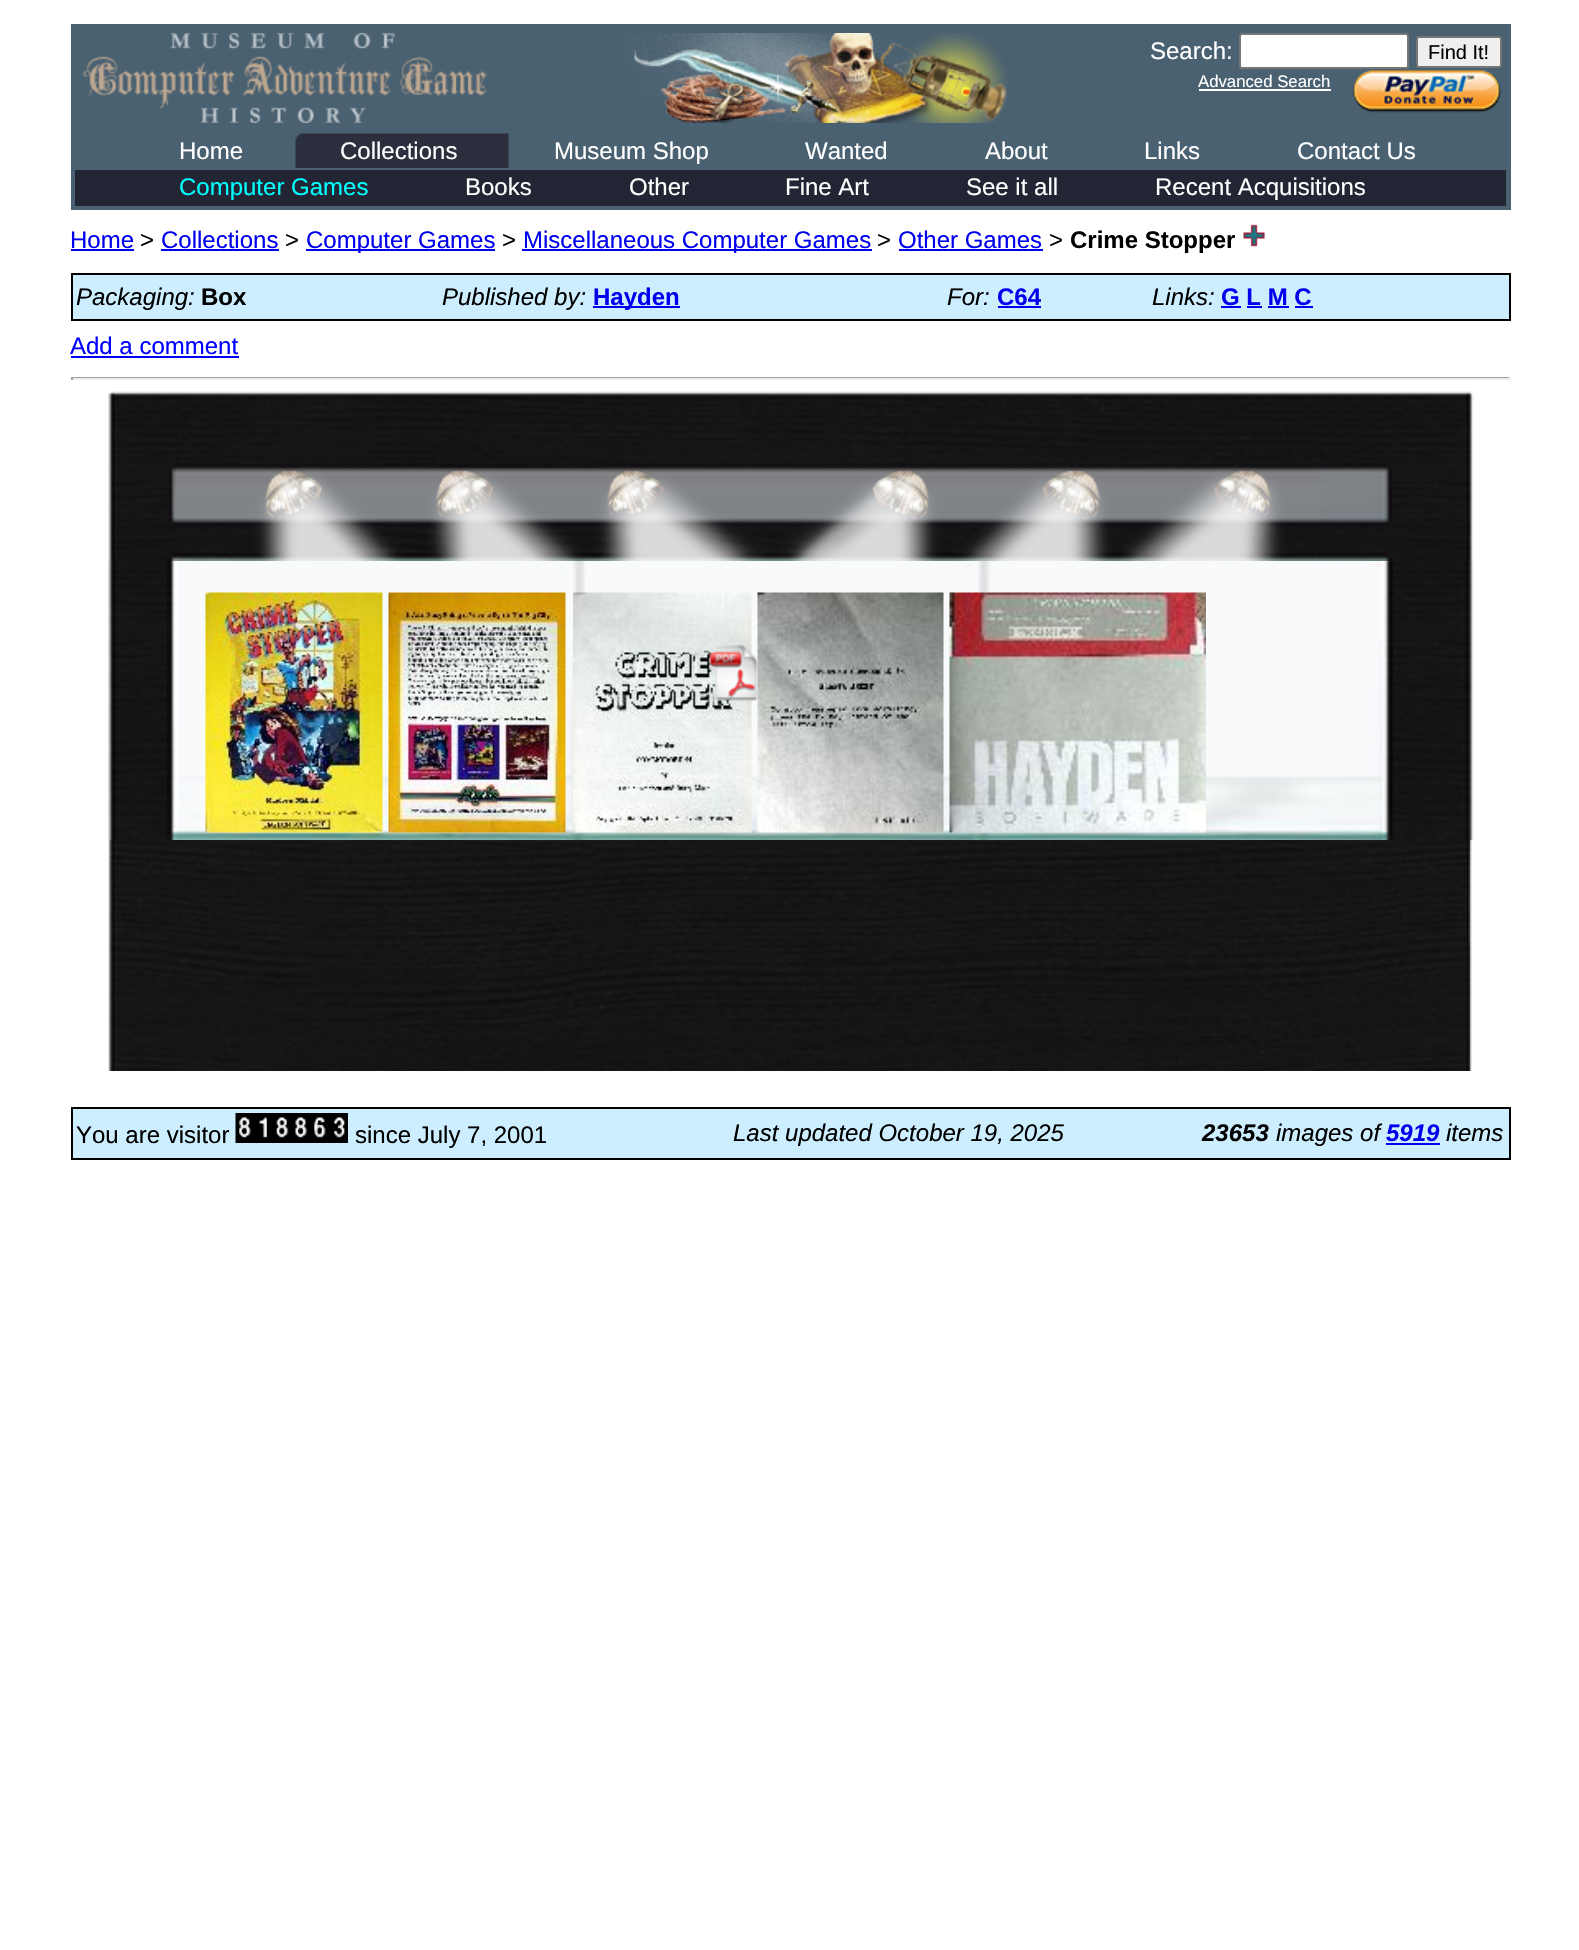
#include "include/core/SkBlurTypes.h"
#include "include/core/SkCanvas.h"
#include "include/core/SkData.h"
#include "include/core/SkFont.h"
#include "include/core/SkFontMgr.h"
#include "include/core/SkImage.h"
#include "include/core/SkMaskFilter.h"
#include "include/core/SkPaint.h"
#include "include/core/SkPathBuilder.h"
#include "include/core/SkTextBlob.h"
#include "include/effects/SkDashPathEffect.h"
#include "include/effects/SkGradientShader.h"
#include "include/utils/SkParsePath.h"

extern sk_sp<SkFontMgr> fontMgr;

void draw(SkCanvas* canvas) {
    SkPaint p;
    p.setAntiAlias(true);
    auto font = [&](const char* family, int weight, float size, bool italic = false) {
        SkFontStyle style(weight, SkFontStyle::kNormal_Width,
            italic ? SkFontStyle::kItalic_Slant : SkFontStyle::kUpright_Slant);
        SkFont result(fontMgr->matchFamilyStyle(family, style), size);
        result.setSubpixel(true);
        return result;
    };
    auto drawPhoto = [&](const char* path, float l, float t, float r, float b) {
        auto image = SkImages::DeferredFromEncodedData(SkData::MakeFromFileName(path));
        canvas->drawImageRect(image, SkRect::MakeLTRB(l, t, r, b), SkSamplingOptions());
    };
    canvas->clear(0xFFFFFFFF);
    p.setColor(0xFF4A6171);
    canvas->drawRect(SkRect::MakeLTRB(71, 24, 1511, 210), p);
    drawPhoto("media/1.png", 82, 33, 1007, 123);
    auto font1 = font("Liberation Sans", 400, 24);
    p.setColor(0xFFFFFFFF);
    canvas->drawString("Search:", 1150, 59, font1, p);
    canvas->drawRoundRect(SkRect::MakeLTRB(1240, 34, 1408, 68), 2, 2, p);
    p.setStyle(SkPaint::kStroke_Style);
    p.setStrokeWidth(2);
    p.setColor(0xFF767676);
    canvas->drawRoundRect(SkRect::MakeLTRB(1240, 34, 1408, 68), 2, 2, p);
    p.setStyle(SkPaint::kFill_Style);
    p.setColor(0xFFEFEFEF);
    canvas->drawRoundRect(SkRect::MakeLTRB(1417, 37, 1501, 67), 2, 2, p);
    p.setStyle(SkPaint::kStroke_Style);
    p.setColor(0xFF767676);
    canvas->drawRoundRect(SkRect::MakeLTRB(1417, 37, 1501, 67), 2, 2, p);
    auto font2 = font("Liberation Sans", 400, 20);
    p.setStyle(SkPaint::kFill_Style);
    p.setColor(0xFF000000);
    canvas->drawString("Find It!", 1428, 59, font2, p);
    auto font3 = font("Liberation Sans", 400, 16.75f);
    p.setColor(0xFFFFFFFF);
    canvas->drawString("Advanced Search", 1198, 87, font3, p);
    canvas->drawRect(SkRect::MakeLTRB(1199, 89, 1331, 91), p);
    drawPhoto("media/2.png", 1352, 70, 1502, 113);
    drawPhoto("media/3.png", 295, 133, 509, 168);
    {
        const struct { const char* s; float x, y; } items[] = {
            {"Home", 179, 159},
            {"Collections", 340, 159},
            {"Museum Shop", 554, 159},
            {"Wanted", 805, 159},
            {"About", 985, 159},
            {"Links", 1144, 159},
            {"Contact Us", 1297, 159},
        };
        for (auto [s, x, y] : items) {
            canvas->drawString(s, x, y, font1, p);
        }
    }
    p.setColor(0xFF222533);
    canvas->drawRect(SkRect::MakeLTRB(75, 170, 1506, 206), p);
    p.setColor(0xFF00FFFF);
    canvas->drawString("Computer Games", 179, 195, font1, p);
    p.setColor(0xFFFFFFFF);
    {
        const struct { const char* s; float x, y; } items[] = {
            {"Books", 465, 195},
            {"Other", 629, 195},
            {"Fine Art", 785, 195},
            {"See it all", 966, 195},
            {"Recent Acquisitions", 1155, 195},
        };
        for (auto [s, x, y] : items) {
            canvas->drawString(s, x, y, font1, p);
        }
    }
    p.setColor(0xFF0000EE);
    canvas->drawString("Home", 70, 248, font1, p);
    canvas->drawRect(SkRect::MakeLTRB(71, 249, 134, 251), p);
    p.setColor(0xFF000000);
    canvas->drawString(">", 140, 248, font1, p);
    p.setColor(0xFF0000EE);
    canvas->drawString("Collections", 161, 248, font1, p);
    canvas->drawRect(SkRect::MakeLTRB(161, 249, 279, 251), p);
    p.setColor(0xFF000000);
    canvas->drawString(">", 285, 248, font1, p);
    p.setColor(0xFF0000EE);
    canvas->drawRect(SkRect::MakeLTRB(306, 249, 495, 251), p);
    canvas->drawString("Computer Games", 306, 248, font1, p);
    p.setColor(0xFF000000);
    canvas->drawString(">", 502, 248, font1, p);
    p.setColor(0xFF0000EE);
    canvas->drawRect(SkRect::MakeLTRB(522, 249, 872, 251), p);
    canvas->drawString("Miscellaneous Computer Games", 523, 248, font1, p);
    p.setColor(0xFF000000);
    canvas->drawString(">", 877, 248, font1, p);
    p.setColor(0xFF0000EE);
    canvas->drawString("Other Games", 898, 248, font1, p);
    canvas->drawRect(SkRect::MakeLTRB(899, 249, 1043, 251), p);
    p.setColor(0xFF000000);
    canvas->drawString(">", 1049, 248, font1, p);
    auto font4 = font("Liberation Sans", 700, 24);
    canvas->drawString("Crime Stopper", 1070, 248, font4, p);
    drawPhoto("media/4.png", 1243, 224, 1265, 247);
    p.setColor(0xFFCCEEFF);
    canvas->drawRect(SkRect::MakeLTRB(72, 274, 1510, 320), p);
    p.setStyle(SkPaint::kStroke_Style);
    p.setColor(0xFF000000);
    canvas->drawRect(SkRect::MakeLTRB(72, 274, 1510, 320), p);
    auto font5 = font("Liberation Sans", 400, 24, true);
    p.setStyle(SkPaint::kFill_Style);
    canvas->drawString("Packaging:", 76, 305, font5, p);
    canvas->drawString("Box", 201, 305, font4, p);
    canvas->drawString("Published by:", 442, 305, font5, p);
    p.setColor(0xFF0000EE);
    canvas->drawRect(SkRect::MakeLTRB(593, 306, 680, 308), p);
    canvas->drawString("Hayden", 593, 305, font4, p);
    p.setColor(0xFF000000);
    canvas->drawString("For:", 947, 305, font5, p);
    p.setColor(0xFF0000EE);
    canvas->drawString("C64", 997, 305, font4, p);
    canvas->drawRect(SkRect::MakeLTRB(998, 306, 1041, 308), p);
    p.setColor(0xFF000000);
    canvas->drawString("Links:", 1152, 305, font5, p);
    p.setColor(0xFF0000EE);
    canvas->drawString("G L M C", 1221, 305, font4, p);
    {
        const struct { float l, t, r, b; SkColor color; } items[] = {
            {1221, 306, 1241, 308, 0xFF0000EE},
            {1247, 306, 1262, 308, 0xFF0000EE},
            {1268, 306, 1289, 308, 0xFF0000EE},
            {1295, 306, 1313, 308, 0xFF0000EE},
        };
        for (auto [l, t, r, b, color] : items) {
            p.setColor(color);
            canvas->drawRect(SkRect::MakeLTRB(l, t, r, b), p);
        }
    }
    p.setColor(0xFF0000FF);
    canvas->drawString("Add a comment", 70, 354, font1, p);
    {
        const struct { float l, t, r, b; SkColor color; } items[] = {
            {71, 356, 239, 358, 0xFF0000FF},
            {71, 377, 1511, 378, 0xFF9F9F9F},
            {1509, 377, 1511, 380, 0xFFEEEEEE},
            {71, 378, 1511, 380, 0xFFEEEEEE},
            {71, 377, 73, 380, 0xFF9F9F9F},
        };
        for (auto [l, t, r, b, color] : items) {
            p.setColor(color);
            canvas->drawRect(SkRect::MakeLTRB(l, t, r, b), p);
        }
    }
    drawPhoto("media/5.png", 107, 391, 1474, 561);
    drawPhoto("media/6.png", 107, 561, 1474, 840);
    drawPhoto("media/7.png", 205, 592, 383, 833);
    drawPhoto("media/8.png", 388, 592, 566, 833);
    drawPhoto("media/9.png", 573, 592, 752, 833);
    drawPhoto("media/10.png", 757, 592, 944, 833);
    drawPhoto("media/11.png", 949, 592, 1206, 833);
    drawPhoto("media/12.png", 709, 645, 758, 701);
    drawPhoto("media/13.png", 108, 840, 1472, 1071);
    p.setColor(0xFFCCEEFF);
    canvas->drawRect(SkRect::MakeLTRB(72, 1108, 1510, 1159), p);
    p.setStyle(SkPaint::kStroke_Style);
    p.setColor(0xFF000000);
    canvas->drawRect(SkRect::MakeLTRB(72, 1108, 1510, 1159), p);
    p.setStyle(SkPaint::kFill_Style);
    canvas->drawString("You are visitor", 76, 1143, font1, p);
    drawPhoto("media/14.png", 235, 1113, 348, 1143);
    canvas->drawString("since July 7, 2001", 355, 1143, font1, p);
    canvas->drawString("Last updated October 19, 2025", 733, 1141, font5, p);
    auto font6 = font("Liberation Sans", 700, 24, true);
    canvas->drawString("23653", 1202, 1141, font6, p);
    canvas->drawString("images of", 1276, 1141, font5, p);
    p.setColor(0xFF0000EE);
    canvas->drawString("5919", 1386, 1141, font6, p);
    canvas->drawRect(SkRect::MakeLTRB(1386, 1143, 1440, 1145), p);
    p.setColor(0xFF000000);
    canvas->drawString("items", 1446, 1141, font5, p);
}
